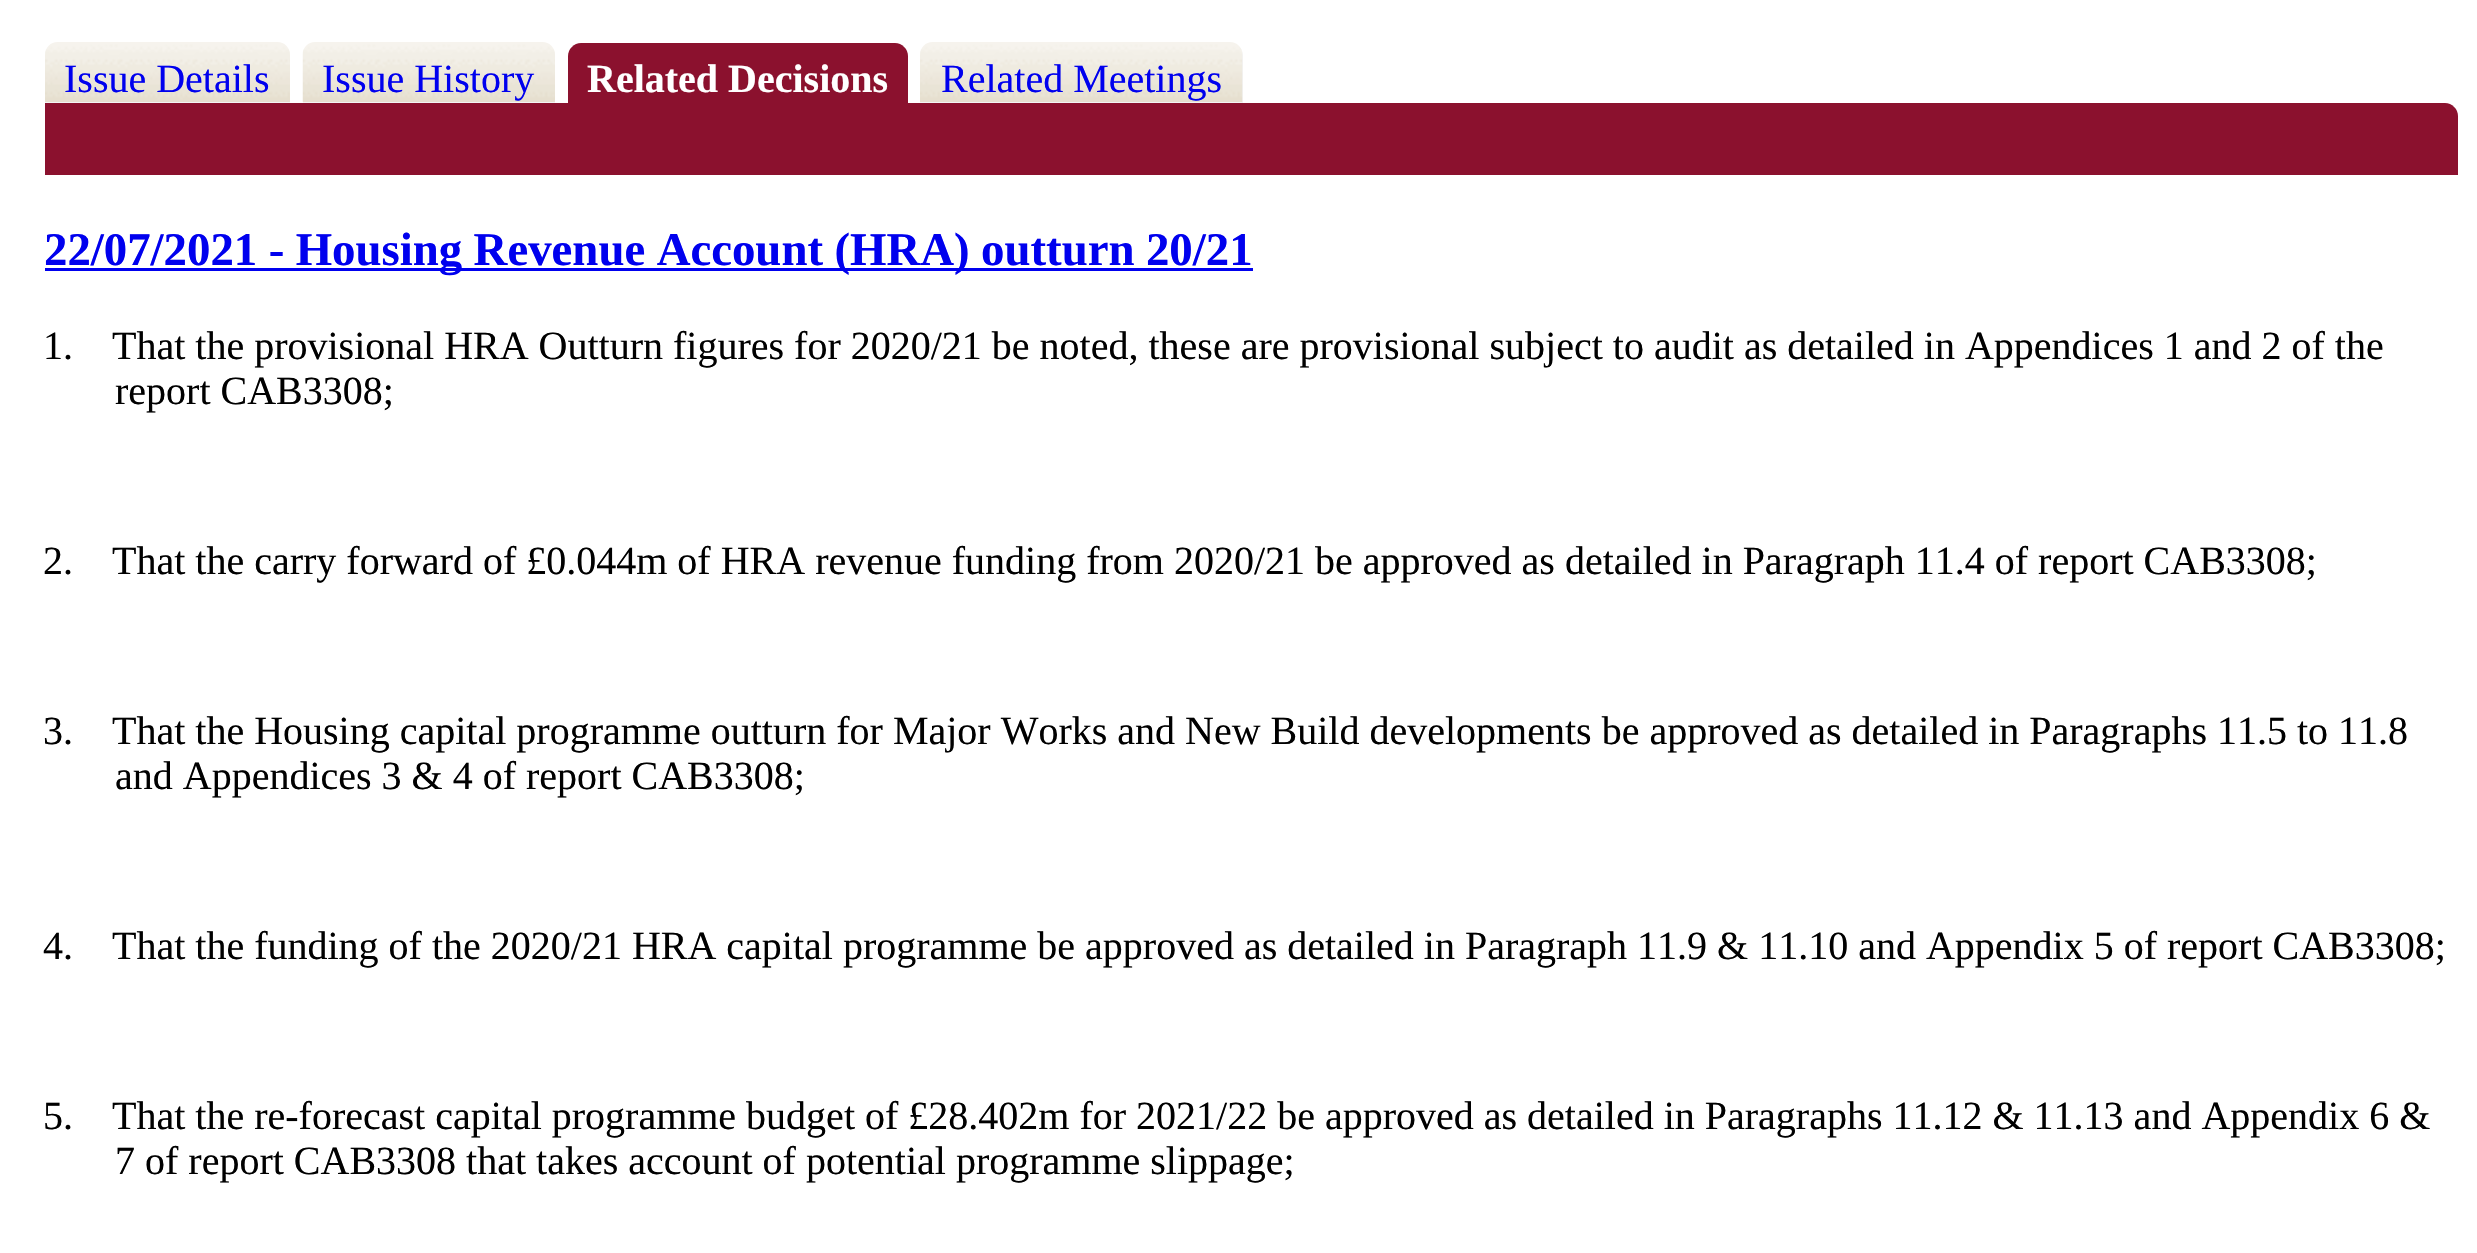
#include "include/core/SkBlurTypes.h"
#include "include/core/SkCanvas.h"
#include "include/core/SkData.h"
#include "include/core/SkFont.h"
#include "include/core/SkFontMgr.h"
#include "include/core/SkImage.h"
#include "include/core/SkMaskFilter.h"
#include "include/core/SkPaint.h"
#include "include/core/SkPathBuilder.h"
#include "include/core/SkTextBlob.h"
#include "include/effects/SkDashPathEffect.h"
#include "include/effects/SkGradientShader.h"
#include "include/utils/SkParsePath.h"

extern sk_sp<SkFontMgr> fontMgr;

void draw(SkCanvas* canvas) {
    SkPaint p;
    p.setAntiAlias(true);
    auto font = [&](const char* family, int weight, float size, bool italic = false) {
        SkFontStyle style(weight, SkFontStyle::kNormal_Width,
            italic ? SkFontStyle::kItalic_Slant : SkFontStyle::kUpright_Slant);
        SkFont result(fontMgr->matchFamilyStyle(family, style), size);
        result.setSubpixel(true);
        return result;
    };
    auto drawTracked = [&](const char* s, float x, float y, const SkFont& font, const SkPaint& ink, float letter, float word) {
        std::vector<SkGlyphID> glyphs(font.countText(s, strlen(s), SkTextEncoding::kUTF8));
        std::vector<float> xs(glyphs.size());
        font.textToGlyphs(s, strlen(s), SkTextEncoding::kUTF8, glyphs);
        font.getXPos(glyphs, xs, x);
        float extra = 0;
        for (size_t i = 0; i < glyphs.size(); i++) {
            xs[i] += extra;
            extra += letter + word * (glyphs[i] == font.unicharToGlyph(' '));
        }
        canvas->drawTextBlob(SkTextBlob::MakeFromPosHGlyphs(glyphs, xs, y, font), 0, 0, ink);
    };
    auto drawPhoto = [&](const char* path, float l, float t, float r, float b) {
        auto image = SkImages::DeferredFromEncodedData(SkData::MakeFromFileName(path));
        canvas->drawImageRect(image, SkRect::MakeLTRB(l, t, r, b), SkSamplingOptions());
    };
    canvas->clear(0xFFFFFFFF);
    p.setColor(0xFFF3F3F3);
    canvas->drawPath(SkPathBuilder().moveTo(58, 43).lineTo(277, 43).cubicTo(284, 43, 290, 49, 290, 56).lineTo(290, 103).lineTo(45, 103).lineTo(45, 56).cubicTo(45, 49, 51, 43, 58, 43).close().detach(), p);
    drawPhoto("media/1.png", 45, 42, 290, 102);
    auto font1 = font("Liberation Serif", 400, 40);
    p.setColor(0xFF0000EE);
    canvas->drawString("Issue Details", 64, 92, font1, p);
    p.setColor(0xFFF3F3F3);
    canvas->drawPath(SkPathBuilder().moveTo(316, 43).lineTo(542, 43).cubicTo(549, 43, 555, 49, 555, 56).lineTo(555, 103).lineTo(303, 103).lineTo(303, 56).cubicTo(303, 49, 309, 43, 316, 43).close().detach(), p);
    drawPhoto("media/2.png", 302, 42, 555, 102);
    p.setColor(0xFF0000EE);
    canvas->drawString("Issue History", 322, 92, font1, p);
    p.setColor(0xFF8B112E);
    canvas->drawPath(SkPathBuilder().moveTo(581, 43).lineTo(895, 43).cubicTo(902, 43, 908, 49, 908, 56).lineTo(908, 103).lineTo(568, 103).lineTo(568, 56).cubicTo(568, 49, 574, 43, 581, 43).close().detach(), p);
    auto font2 = font("Liberation Serif", 700, 40);
    p.setColor(0xFFFFFFFF);
    canvas->drawString("Related Decisions", 587, 92, font2, p);
    p.setColor(0xFFF3F3F3);
    canvas->drawPath(SkPathBuilder().moveTo(933, 43).lineTo(1230, 43).cubicTo(1237, 43, 1243, 49, 1243, 56).lineTo(1243, 103).lineTo(920, 103).lineTo(920, 56).cubicTo(920, 49, 926, 43, 933, 43).close().detach(), p);
    drawPhoto("media/3.png", 920, 42, 1243, 102);
    p.setColor(0xFF0000EE);
    canvas->drawString("Related Meetings", 941, 92, font1, p);
    p.setColor(0xFF8B112E);
    canvas->drawPath(SkPathBuilder().moveTo(45, 103).lineTo(2445, 103).cubicTo(2452, 103, 2458, 109, 2458, 116).lineTo(2458, 175).lineTo(45, 175).close().detach(), p);
    p.setColor(0xFF0000EE);
    canvas->drawRect(SkRect::MakeLTRB(45, 268, 1253, 271), p);
    auto font3 = font("Liberation Serif", 700, 46.8f);
    drawTracked("22/07/2021 - Housing Revenue Account (HRA) outturn 20/21", 44, 265, font3, p, 0, -0.25f);
    p.setColor(0xFF000000);
    {
        const struct { const char* s; float x, y; } items[] = {
            {"1.", 43, 359},
            {"That the provisional HRA Outturn figures for 2020/21 be noted, these are provisional subject to audit as detailed in Appendices 1 and 2 of the", 112, 359},
            {"report CAB3308;", 115, 404},
            {"2.", 43, 574},
            {"That the carry forward of £0.044m of HRA revenue funding from 2020/21 be approved as detailed in Paragraph 11.4 of report CAB3308;", 112, 574},
            {"3.", 43, 744},
            {"That the Housing capital programme outturn for Major Works and New Build developments be approved as detailed in Paragraphs 11.5 to 11.8", 112, 744},
            {"and Appendices 3 & 4 of report CAB3308;", 115, 789},
            {"4.", 43, 959},
            {"That the funding of the 2020/21 HRA capital programme be approved as detailed in Paragraph 11.9 & 11.10 and Appendix 5 of report CAB3308;", 112, 959},
            {"5.", 43, 1129},
            {"That the re-forecast capital programme budget of £28.402m for 2021/22 be approved as detailed in Paragraphs 11.12 & 11.13 and Appendix 6 &", 112, 1129},
            {"7 of report CAB3308 that takes account of potential programme slippage;", 115, 1174},
        };
        for (auto [s, x, y] : items) {
            canvas->drawString(s, x, y, font1, p);
        }
    }
}
